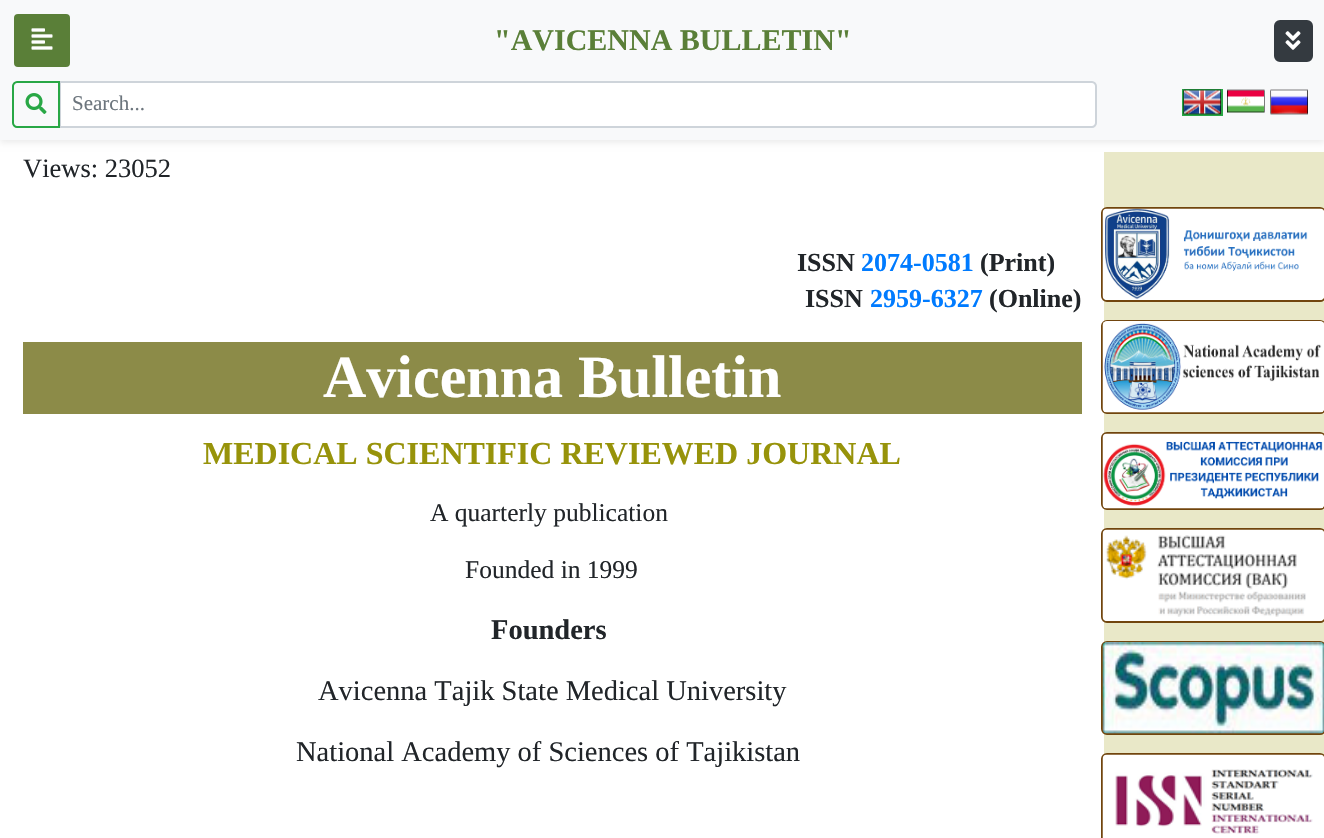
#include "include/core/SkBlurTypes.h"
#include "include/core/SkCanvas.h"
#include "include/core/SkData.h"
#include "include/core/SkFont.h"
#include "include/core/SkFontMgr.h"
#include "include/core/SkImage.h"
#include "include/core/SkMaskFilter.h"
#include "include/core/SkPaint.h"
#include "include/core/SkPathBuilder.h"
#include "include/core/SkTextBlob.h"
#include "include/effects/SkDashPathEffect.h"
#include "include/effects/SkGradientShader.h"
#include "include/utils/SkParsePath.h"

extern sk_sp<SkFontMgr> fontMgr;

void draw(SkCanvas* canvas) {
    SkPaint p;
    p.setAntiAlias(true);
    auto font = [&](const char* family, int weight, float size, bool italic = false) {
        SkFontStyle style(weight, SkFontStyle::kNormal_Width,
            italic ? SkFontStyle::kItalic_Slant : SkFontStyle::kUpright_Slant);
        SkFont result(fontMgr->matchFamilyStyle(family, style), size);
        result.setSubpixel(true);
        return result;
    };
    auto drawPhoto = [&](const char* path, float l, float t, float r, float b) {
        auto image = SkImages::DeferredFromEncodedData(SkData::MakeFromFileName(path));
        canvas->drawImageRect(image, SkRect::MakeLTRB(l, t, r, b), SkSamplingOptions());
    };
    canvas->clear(0xFFFFFFFF);
    p.setColor(0xFFE9E8C8);
    canvas->drawRect(SkRect::MakeLTRB(1104, 152, 1324, 757), p);
    p.setColor(0x12000000);
    p.setMaskFilter(SkMaskFilter::MakeBlur(kNormal_SkBlurStyle, 3));
    canvas->drawRect(SkRect::MakeLTRB(0, 3, 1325, 143), p);
    p.setMaskFilter(nullptr);
    p.setColor(0xFFF8F9FA);
    canvas->drawRect(SkRect::MakeLTRB(0, 0, 1324, 140), p);
    p.setColor(0xFF5A7F38);
    canvas->drawRoundRect(SkRect::MakeLTRB(13, 13, 71, 68), 5, 5, p);
    p.setStyle(SkPaint::kStroke_Style);
    p.setStrokeWidth(2);
    p.setColor(0xFFF8F9FA);
    canvas->drawRoundRect(SkRect::MakeLTRB(13, 13, 71, 68), 5, 5, p);
    drawPhoto("media/1.png", 31, 28, 53, 50);
    auto font1 = font("Liberation Serif", 700, 30);
    p.setStyle(SkPaint::kFill_Style);
    p.setColor(0xFF5A7F38);
    canvas->drawString("\"AVICENNA BULLETIN\"", 494, 50, font1, p);
    p.setColor(0xFF343A40);
    canvas->drawRoundRect(SkRect::MakeLTRB(1275, 21, 1312, 61), 5, 5, p);
    p.setStyle(SkPaint::kStroke_Style);
    canvas->drawRoundRect(SkRect::MakeLTRB(1275, 21, 1312, 61), 5, 5, p);
    drawPhoto("media/2.png", 1285, 31, 1301, 50);
    p.setStyle(SkPaint::kFill_Style);
    p.setColor(0xFFFFFFFF);
    canvas->drawPath(SkPathBuilder().moveTo(60, 82).lineTo(1092, 82).cubicTo(1094, 82, 1096, 84, 1096, 86).lineTo(1096, 123).cubicTo(1096, 125, 1094, 127, 1092, 127).lineTo(60, 127).close().detach(), p);
    p.setStyle(SkPaint::kStroke_Style);
    p.setColor(0xFFCED4DA);
    canvas->drawPath(SkPathBuilder().moveTo(60, 82).lineTo(1092, 82).cubicTo(1094, 82, 1096, 84, 1096, 86).lineTo(1096, 123).cubicTo(1096, 125, 1094, 127, 1092, 127).lineTo(60, 127).close().detach(), p);
    p.setColor(0xFF28A745);
    canvas->drawPath(SkPathBuilder().moveTo(17, 82).lineTo(59, 82).lineTo(59, 127).lineTo(17, 127).cubicTo(15, 127, 13, 125, 13, 123).lineTo(13, 86).cubicTo(13, 84, 15, 82, 17, 82).close().detach(), p);
    drawPhoto("media/3.png", 25, 93, 47, 114);
    auto font2 = font("Liberation Serif", 400, 21);
    p.setStyle(SkPaint::kFill_Style);
    p.setColor(0xFF6C757D);
    canvas->drawString("Search...", 72, 110, font2, p);
    p.setColor(0xFF28A745);
    canvas->drawRect(SkRect::MakeLTRB(1182, 89, 1223, 116), p);
    drawPhoto("media/4.png", 1183, 89, 1221, 115);
    drawPhoto("media/5.png", 1227, 89, 1265, 113);
    drawPhoto("media/6.png", 1270, 89, 1308, 115);
    auto font3 = font("Liberation Serif", 400, 26.5f);
    p.setColor(0xFF212529);
    canvas->drawString("Views: 23052", 23, 177, font3, p);
    auto font4 = font("Liberation Serif", 700, 26);
    canvas->drawString("ISSN", 797, 271, font4, p);
    p.setColor(0xFF007BFF);
    canvas->drawString("2074-0581", 861, 271, font4, p);
    p.setColor(0xFF212529);
    canvas->drawString("(Print)", 980, 271, font4, p);
    canvas->drawString("ISSN", 805, 307, font4, p);
    p.setColor(0xFF007BFF);
    canvas->drawString("2959-6327", 870, 307, font4, p);
    p.setColor(0xFF212529);
    canvas->drawString("(Online)", 989, 307, font4, p);
    p.setColor(0xFF8C8B48);
    canvas->drawRect(SkRect::MakeLTRB(23, 342, 1082, 414), p);
    auto font5 = font("Liberation Serif", 700, 60);
    p.setColor(0xFFFFFFFF);
    canvas->drawString("Avicenna Bulletin", 323, 397, font5, p);
    auto font6 = font("Liberation Serif", 700, 32);
    p.setColor(0xFF97930A);
    canvas->drawString("MEDICAL SCIENTIFIC REVIEWED JOURNAL", 203, 464, font6, p);
    auto font7 = font("Liberation Serif", 400, 25.5f);
    p.setColor(0xFF212529);
    canvas->drawString("A quarterly publication", 430, 521, font7, p);
    canvas->drawString("Founded in 1999", 465, 578, font7, p);
    auto font8 = font("Liberation Serif", 700, 28.5f);
    canvas->drawString("Founders", 491, 639, font8, p);
    auto font9 = font("Liberation Serif", 400, 28.5f);
    canvas->drawString("Avicenna Tajik State Medical University", 318, 700, font9, p);
    canvas->drawString("National Academy of Sciences of Tajikistan", 296, 761, font9, p);
    p.setStyle(SkPaint::kStroke_Style);
    p.setColor(0xFF71450E);
    canvas->drawRoundRect(SkRect::MakeLTRB(1102, 208, 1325, 301), 5, 5, p);
    drawPhoto("media/7.png", 1102, 208, 1324, 300);
    canvas->drawRoundRect(SkRect::MakeLTRB(1102, 321, 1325, 413), 5, 5, p);
    drawPhoto("media/8.png", 1102, 321, 1324, 413);
    canvas->drawRoundRect(SkRect::MakeLTRB(1102, 433, 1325, 509), 5, 5, p);
    drawPhoto("media/9.png", 1102, 433, 1324, 509);
    canvas->drawRoundRect(SkRect::MakeLTRB(1102, 529, 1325, 622), 5, 5, p);
    drawPhoto("media/10.png", 1102, 529, 1324, 621);
    canvas->drawRoundRect(SkRect::MakeLTRB(1102, 642, 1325, 734), 5, 5, p);
    drawPhoto("media/11.png", 1102, 642, 1324, 734);
    canvas->drawRoundRect(SkRect::MakeLTRB(1102, 754, 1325, 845), 5, 5, p);
    drawPhoto("media/12.png", 1102, 754, 1324, 838);
}
